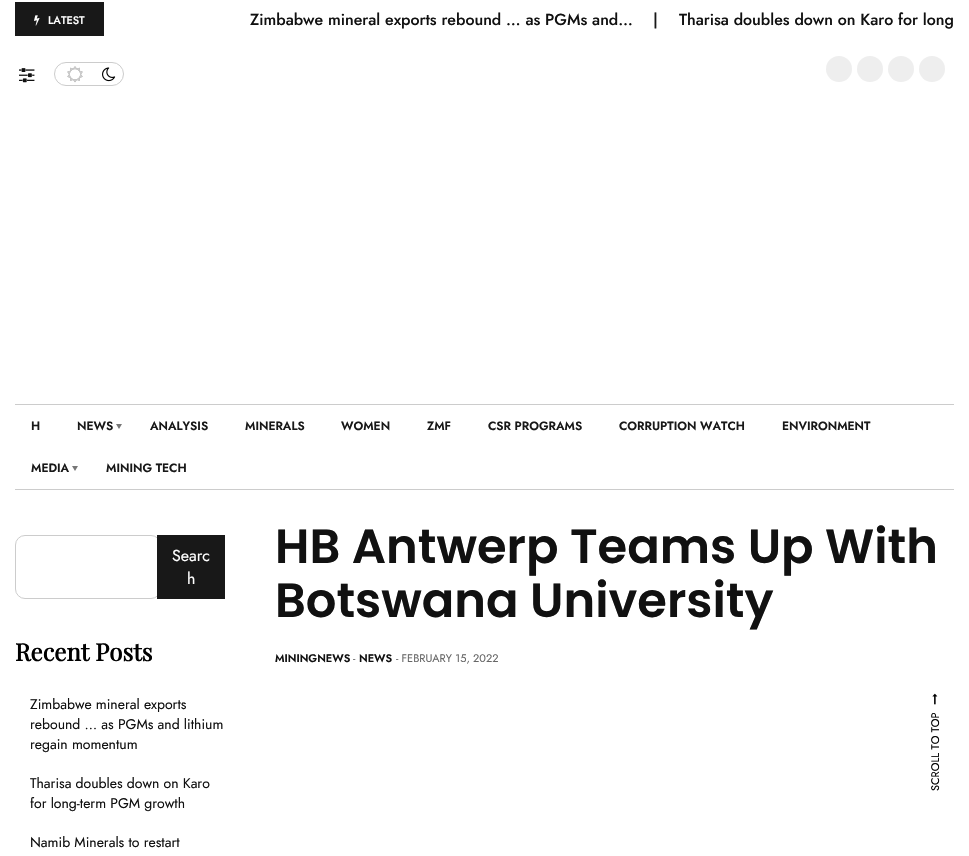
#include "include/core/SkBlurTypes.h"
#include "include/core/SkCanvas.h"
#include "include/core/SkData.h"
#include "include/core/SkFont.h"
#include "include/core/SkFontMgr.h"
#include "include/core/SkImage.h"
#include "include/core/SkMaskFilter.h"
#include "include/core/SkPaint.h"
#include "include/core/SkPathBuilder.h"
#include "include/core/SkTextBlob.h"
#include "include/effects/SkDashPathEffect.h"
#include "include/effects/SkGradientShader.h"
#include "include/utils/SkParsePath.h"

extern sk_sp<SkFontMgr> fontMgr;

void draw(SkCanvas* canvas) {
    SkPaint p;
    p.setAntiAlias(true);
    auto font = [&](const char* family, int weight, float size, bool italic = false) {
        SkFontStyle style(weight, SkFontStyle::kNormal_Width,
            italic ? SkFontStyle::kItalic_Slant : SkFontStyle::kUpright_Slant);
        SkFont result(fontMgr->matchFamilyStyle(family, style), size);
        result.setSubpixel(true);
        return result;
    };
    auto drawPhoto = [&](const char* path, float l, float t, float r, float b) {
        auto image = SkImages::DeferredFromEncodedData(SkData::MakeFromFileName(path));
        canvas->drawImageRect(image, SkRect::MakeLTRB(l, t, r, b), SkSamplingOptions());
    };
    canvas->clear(0xFFFFFFFF);
    p.setColor(0xFF181818);
    canvas->drawRect(SkRect::MakeLTRB(15, 2, 104, 36), p);
    drawPhoto("media/1.png", 34, 15, 40, 26);
    auto font1 = font("Jost", 500, 11);
    p.setColor(0xFFFFFFFF);
    canvas->drawString("LATEST", 48, 24, font1, p);
    auto font2 = font("Jost", 500, 16);
    p.setColor(0xFF111111);
    canvas->drawString("Zimbabwe mineral exports rebound … as PGMs and…", 250, 25, font2, p);
    p.setColor(0xFF181818);
    canvas->drawString("|", 653, 25, font2, p);
    p.setColor(0xFF111111);
    canvas->drawString("Tharisa doubles down on Karo for long", 679, 25, font2, p);
    drawPhoto("media/2.png", 19, 68, 35, 83);
    p.setStyle(SkPaint::kStroke_Style);
    p.setStrokeWidth(1);
    p.setColor(0xFFCCCCCC);
    canvas->drawRoundRect(SkRect::MakeLTRB(54.5f, 62.5f, 123.5f, 85.5f), 11.5f, 11.5f, p);
    drawPhoto("media/3.png", 67, 66, 83, 83);
    drawPhoto("media/4.png", 102, 67, 116, 82);
    drawPhoto("media/5.png", 67, 66, 83, 82);
    p.setStyle(SkPaint::kFill_Style);
    p.setColor(0xFFEEEEEE);
    canvas->drawCircle(839, 69, 13, p);
    canvas->drawCircle(870, 69, 13, p);
    canvas->drawCircle(901, 69, 13, p);
    canvas->drawCircle(932, 69, 13, p);
    p.setColor(0xFFCCCCCC);
    canvas->drawRect(SkRect::MakeLTRB(15, 404, 954, 405), p);
    canvas->drawRect(SkRect::MakeLTRB(15, 489, 954, 490), p);
    auto font3 = font("Jost", 600, 12);
    p.setColor(0xFF181818);
    canvas->drawString("H", 31, 430, font3, p);
    canvas->drawString("NEWS", 77, 430, font3, p);
    p.setColor(0xFF777777);
    canvas->drawPath(SkPathBuilder().moveTo(116, 424).lineTo(122, 424).lineTo(119, 429).close().detach(), p);
    p.setColor(0xFF181818);
    {
        const struct { const char* s; float x, y; } items[] = {
            {"ANALYSIS", 150, 430},
            {"MINERALS", 245, 430},
            {"WOMEN", 341, 430},
            {"ZMF", 427, 430},
            {"CSR PROGRAMS", 488, 430},
            {"CORRUPTION WATCH", 619, 430},
            {"ENVIRONMENT", 782, 430},
            {"MEDIA", 31, 472},
        };
        for (auto [s, x, y] : items) {
            canvas->drawString(s, x, y, font3, p);
        }
    }
    p.setColor(0xFF777777);
    canvas->drawPath(SkPathBuilder().moveTo(72, 466).lineTo(78, 466).lineTo(75, 471).close().detach(), p);
    p.setColor(0xFF181818);
    canvas->drawString("MINING TECH", 106, 472, font3, p);
    p.setStyle(SkPaint::kStroke_Style);
    p.setColor(0xFFCCCCCC);
    canvas->drawRoundRect(SkRect::MakeLTRB(15.5f, 535.5f, 160.5f, 598.5f), 9.5f, 9.5f, p);
    p.setStyle(SkPaint::kFill_Style);
    p.setColor(0xFF181818);
    canvas->drawRect(SkRect::MakeLTRB(157, 535, 225, 599), p);
    auto font4 = font("Jost", 400, 16);
    p.setColor(0xFFFFFFFF);
    canvas->drawString("Searc", 172, 561, font4, p);
    canvas->drawString("h", 187, 584, font4, p);
    auto font5 = font("Playfair Display", 700, 24);
    p.setColor(0xFF000000);
    canvas->drawString("Recent Posts", 15, 661, font5, p);
    auto font6 = font("Jost", 400, 14);
    p.setColor(0xFF111111);
    {
        const struct { const char* s; float x, y; } items[] = {
            {"Zimbabwe mineral exports", 30, 709},
            {"rebound … as PGMs and lithium", 30, 729},
            {"regain momentum", 30, 749},
            {"Tharisa doubles down on Karo", 30, 788},
            {"for long-term PGM growth", 30, 808},
            {"Namib Minerals to restart", 30, 847},
        };
        for (auto [s, x, y] : items) {
            canvas->drawString(s, x, y, font6, p);
        }
    }
    auto font7 = font("Poppins", 600, 48);
    canvas->drawString("HB Antwerp Teams Up With", 275, 563, font7, p);
    canvas->drawString("Botswana University", 275, 617, font7, p);
    auto font8 = font("Jost", 600, 11);
    canvas->drawString("MININGNEWS", 275, 662, font8, p);
    auto font9 = font("Jost", 400, 11);
    p.setColor(0xFF666666);
    canvas->drawString("-", 353, 662, font9, p);
    p.setColor(0xFF111111);
    canvas->drawString("NEWS", 359, 662, font8, p);
    p.setColor(0xFF666666);
    canvas->drawString("- FEBRUARY 15, 2022", 396, 662, font9, p);
    drawPhoto("media/6.png", 932, 693, 938, 705);
    p.setColor(0xFF000000);
    canvas->save();
    canvas->rotate(-90, 939, 791);
    canvas->drawString("SCROLL TO TOP", 939, 791, font9, p);
    canvas->restore();
}
